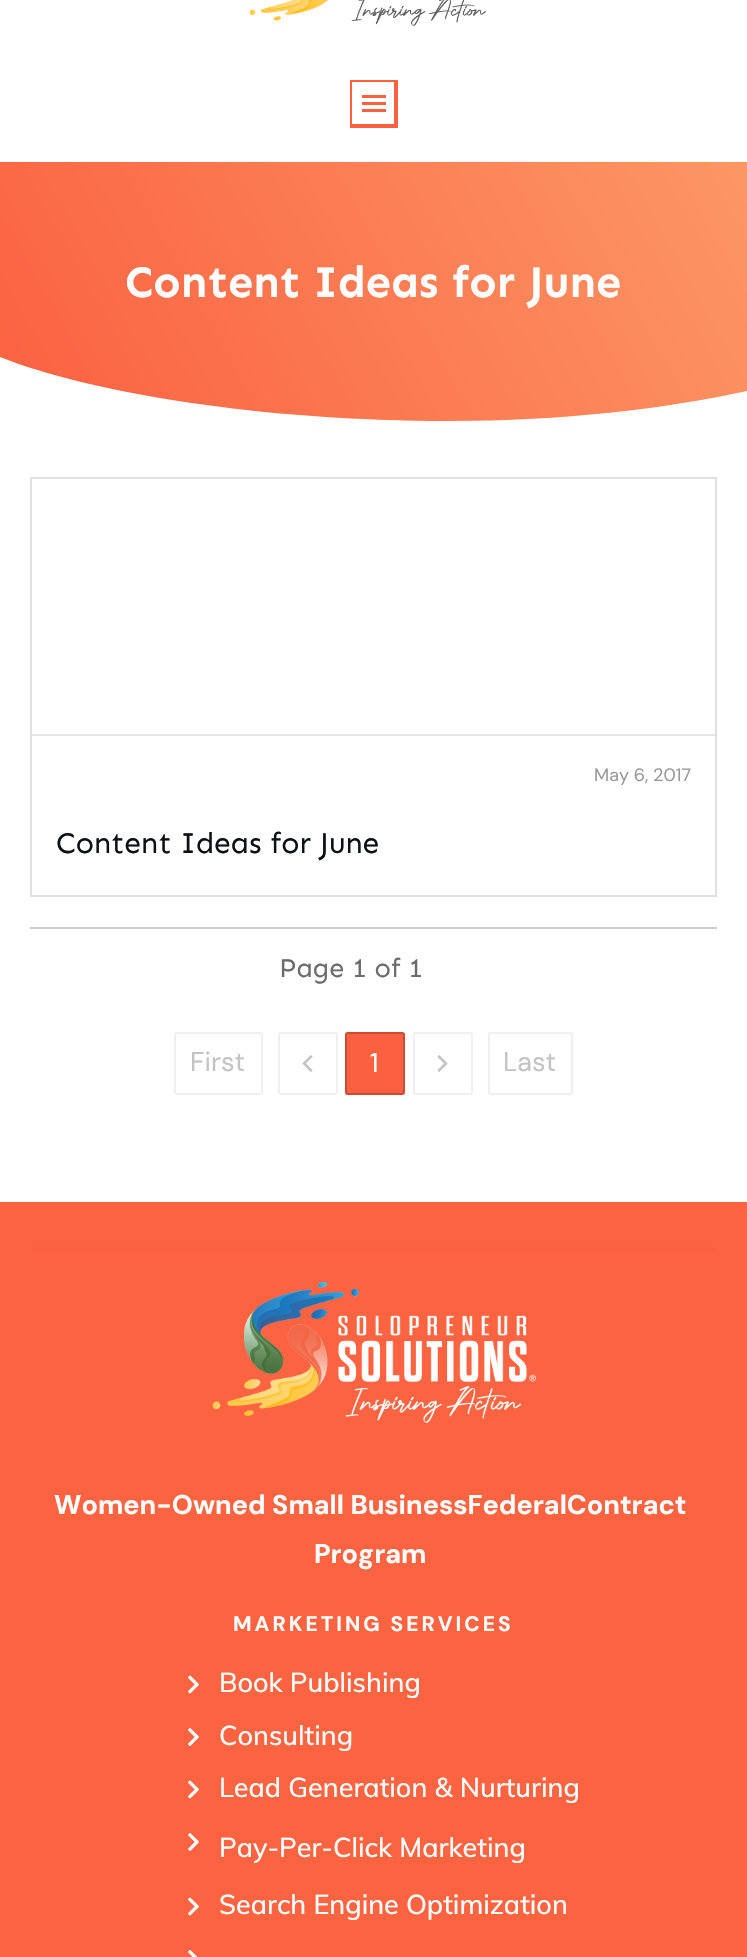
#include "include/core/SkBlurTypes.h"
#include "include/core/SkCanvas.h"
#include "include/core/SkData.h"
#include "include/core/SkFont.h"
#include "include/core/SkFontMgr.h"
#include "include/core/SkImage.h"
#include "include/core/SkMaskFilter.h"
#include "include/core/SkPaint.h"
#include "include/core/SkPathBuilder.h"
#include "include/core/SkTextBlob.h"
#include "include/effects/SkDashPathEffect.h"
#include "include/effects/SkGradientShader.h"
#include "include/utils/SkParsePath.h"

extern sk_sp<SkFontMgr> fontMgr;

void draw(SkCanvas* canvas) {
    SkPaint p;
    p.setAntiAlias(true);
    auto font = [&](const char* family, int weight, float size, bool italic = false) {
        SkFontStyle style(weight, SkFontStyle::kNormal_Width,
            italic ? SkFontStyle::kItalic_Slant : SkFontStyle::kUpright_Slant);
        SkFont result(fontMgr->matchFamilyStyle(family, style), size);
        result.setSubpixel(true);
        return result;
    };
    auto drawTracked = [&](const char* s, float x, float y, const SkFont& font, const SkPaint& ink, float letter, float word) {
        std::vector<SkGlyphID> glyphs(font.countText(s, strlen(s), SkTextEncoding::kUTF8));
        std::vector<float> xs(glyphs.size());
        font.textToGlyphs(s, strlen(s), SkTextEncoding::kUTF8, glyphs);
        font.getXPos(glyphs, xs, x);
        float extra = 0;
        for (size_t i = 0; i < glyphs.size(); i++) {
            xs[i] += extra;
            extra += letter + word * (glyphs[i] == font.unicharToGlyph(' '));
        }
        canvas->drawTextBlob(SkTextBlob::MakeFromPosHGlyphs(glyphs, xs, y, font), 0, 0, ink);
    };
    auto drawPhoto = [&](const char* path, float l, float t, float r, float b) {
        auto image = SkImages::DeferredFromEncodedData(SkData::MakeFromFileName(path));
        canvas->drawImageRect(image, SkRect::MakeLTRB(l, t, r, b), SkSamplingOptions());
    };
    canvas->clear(0xFFFFFFFF);
    drawPhoto("media/1.png", 249, 0, 486, 26);
    {
        const struct { float l, t, r, b; SkColor color; } items[] = {
            {362, 95, 386, 98, 0xFFFB6041},
            {362, 102, 386, 105, 0xFFFB6041},
            {362, 109, 386, 112, 0xFFFB6041},
        };
        for (auto [l, t, r, b, color] : items) {
            p.setColor(color);
            canvas->drawRect(SkRect::MakeLTRB(l, t, r, b), p);
        }
    }
    canvas->drawPath(SkPathBuilder().moveTo(350, 80).lineTo(350, 128).lineTo(398, 128).lineTo(398, 80).close().moveTo(394, 124).lineTo(352, 124).lineTo(352, 82).lineTo(394, 82).close().detach(), p);
    {
        const SkColor colors[] = {0xFFFB6041, 0xFFFC9764};
        const float stops[] = {0, 1};
        const SkPoint ends[] = {{31, 487}, {716, 107}};
        p.setShader(SkGradientShader::MakeLinear(ends, colors, stops, 2, SkTileMode::kClamp));
        p.setAlpha(255);
    }
    canvas->drawRect(SkRect::MakeLTRB(0, 162, 747, 421), p);
    p.setShader(nullptr);
    p.setColor(0xFFFFFFFF);
    canvas->drawPath(SkPathBuilder().moveTo(747, 432).lineTo(747, 391).cubicTo(664, 409, 562, 421, 450, 421).cubicTo(261, 421, 91, 393, 0, 357).lineTo(0, 432).close().detach(), p);
    auto font1 = font("Sen", 700, 45);
    canvas->drawString("Content Ideas for June", 125, 297, font1, p);
    p.setStyle(SkPaint::kStroke_Style);
    p.setStrokeWidth(2);
    p.setColor(0xFFE0E0E0);
    canvas->drawRect(SkRect::MakeLTRB(31, 478, 716, 896), p);
    p.setStyle(SkPaint::kFill_Style);
    p.setColor(0xFFE6E6E6);
    canvas->drawRect(SkRect::MakeLTRB(32, 734, 716, 736), p);
    auto font2 = font("DM Sans", 400, 18);
    p.setColor(0xFF999999);
    canvas->drawString("May 6, 2017", 594, 781, font2, p);
    auto font3 = font("Sen", 400, 30);
    p.setColor(0xFF0C1115);
    canvas->drawString("Content Ideas for June", 56, 853, font3, p);
    p.setColor(0xFFCCCCCC);
    canvas->drawRect(SkRect::MakeLTRB(30, 927, 717, 929), p);
    auto font4 = font("Sen", 400, 27);
    p.setColor(0xFF6C6C6C);
    canvas->drawString("Page 1 of 1", 279, 977, font4, p);
    p.setStyle(SkPaint::kStroke_Style);
    p.setColor(0xFFF0F0F0);
    canvas->drawRoundRect(SkRect::MakeLTRB(175, 1033, 262, 1094), 2, 2, p);
    auto font5 = font("DM Sans", 400, 27);
    p.setStyle(SkPaint::kFill_Style);
    p.setColor(0xFFC4C4C4);
    canvas->drawString("First", 190, 1071, font5, p);
    p.setStyle(SkPaint::kStroke_Style);
    p.setColor(0xFFF0F0F0);
    canvas->drawRoundRect(SkRect::MakeLTRB(279, 1033, 337, 1094), 2, 2, p);
    drawPhoto("media/2.png", 302, 1055, 313, 1072);
    p.setStyle(SkPaint::kFill_Style);
    p.setColor(0xFFFB6041);
    canvas->drawRoundRect(SkRect::MakeLTRB(345, 1032, 405, 1095), 3, 3, p);
    p.setStyle(SkPaint::kStroke_Style);
    p.setColor(0x33000000);
    canvas->drawRoundRect(SkRect::MakeLTRB(346, 1033, 404, 1094), 2, 2, p);
    p.setStyle(SkPaint::kFill_Style);
    p.setColor(0xFFFFFFFF);
    canvas->drawString("1", 370, 1072, font5, p);
    p.setStyle(SkPaint::kStroke_Style);
    p.setColor(0xFFF0F0F0);
    canvas->drawRoundRect(SkRect::MakeLTRB(414, 1033, 472, 1094), 2, 2, p);
    drawPhoto("media/3.png", 437, 1055, 448, 1072);
    canvas->drawRoundRect(SkRect::MakeLTRB(489, 1033, 572, 1094), 2, 2, p);
    p.setStyle(SkPaint::kFill_Style);
    p.setColor(0xFFC4C4C4);
    canvas->drawString("Last", 503, 1071, font5, p);
    p.setColor(0xFFFB6341);
    canvas->drawRect(SkRect::MakeLTRB(0, 1202, 747, 1957), p);
    p.setColor(0xFFFB6041);
    canvas->drawRect(SkRect::MakeLTRB(30, 1247, 717, 1250), p);
    drawPhoto("media/4.png", 212, 1282, 537, 1423);
    auto font6 = font("DM Sans", 700, 27);
    p.setColor(0xFFFFFFFF);
    canvas->drawString("Women-Owned Small Business Federal Contract", 54, 1514, font6, p);
    canvas->drawString("Program", 314, 1563, font6, p);
    auto font7 = font("DM Sans", 700, 21);
    drawTracked("MARKETING SERVICES", 233, 1631, font7, p, 3, 0);
    drawPhoto("media/5.png", 188, 1675, 199, 1694);
    auto font8 = font("Muli", 500, 27);
    canvas->drawString("Book Publishing", 219, 1692, font8, p);
    drawPhoto("media/6.png", 188, 1728, 199, 1746);
    canvas->drawString("Consulting", 219, 1745, font8, p);
    drawPhoto("media/5.png", 188, 1780, 199, 1799);
    canvas->drawString("Lead Generation & Nurturing", 219, 1797, font8, p);
    drawPhoto("media/6.png", 188, 1833, 199, 1851);
    canvas->drawString("Pay-Per-Click Marketing", 219, 1857, font8, p);
    drawPhoto("media/5.png", 188, 1897, 199, 1916);
    canvas->drawString("Search Engine Optimization", 219, 1914, font8, p);
    drawPhoto("media/7.png", 188, 1950, 198, 1957);
}
